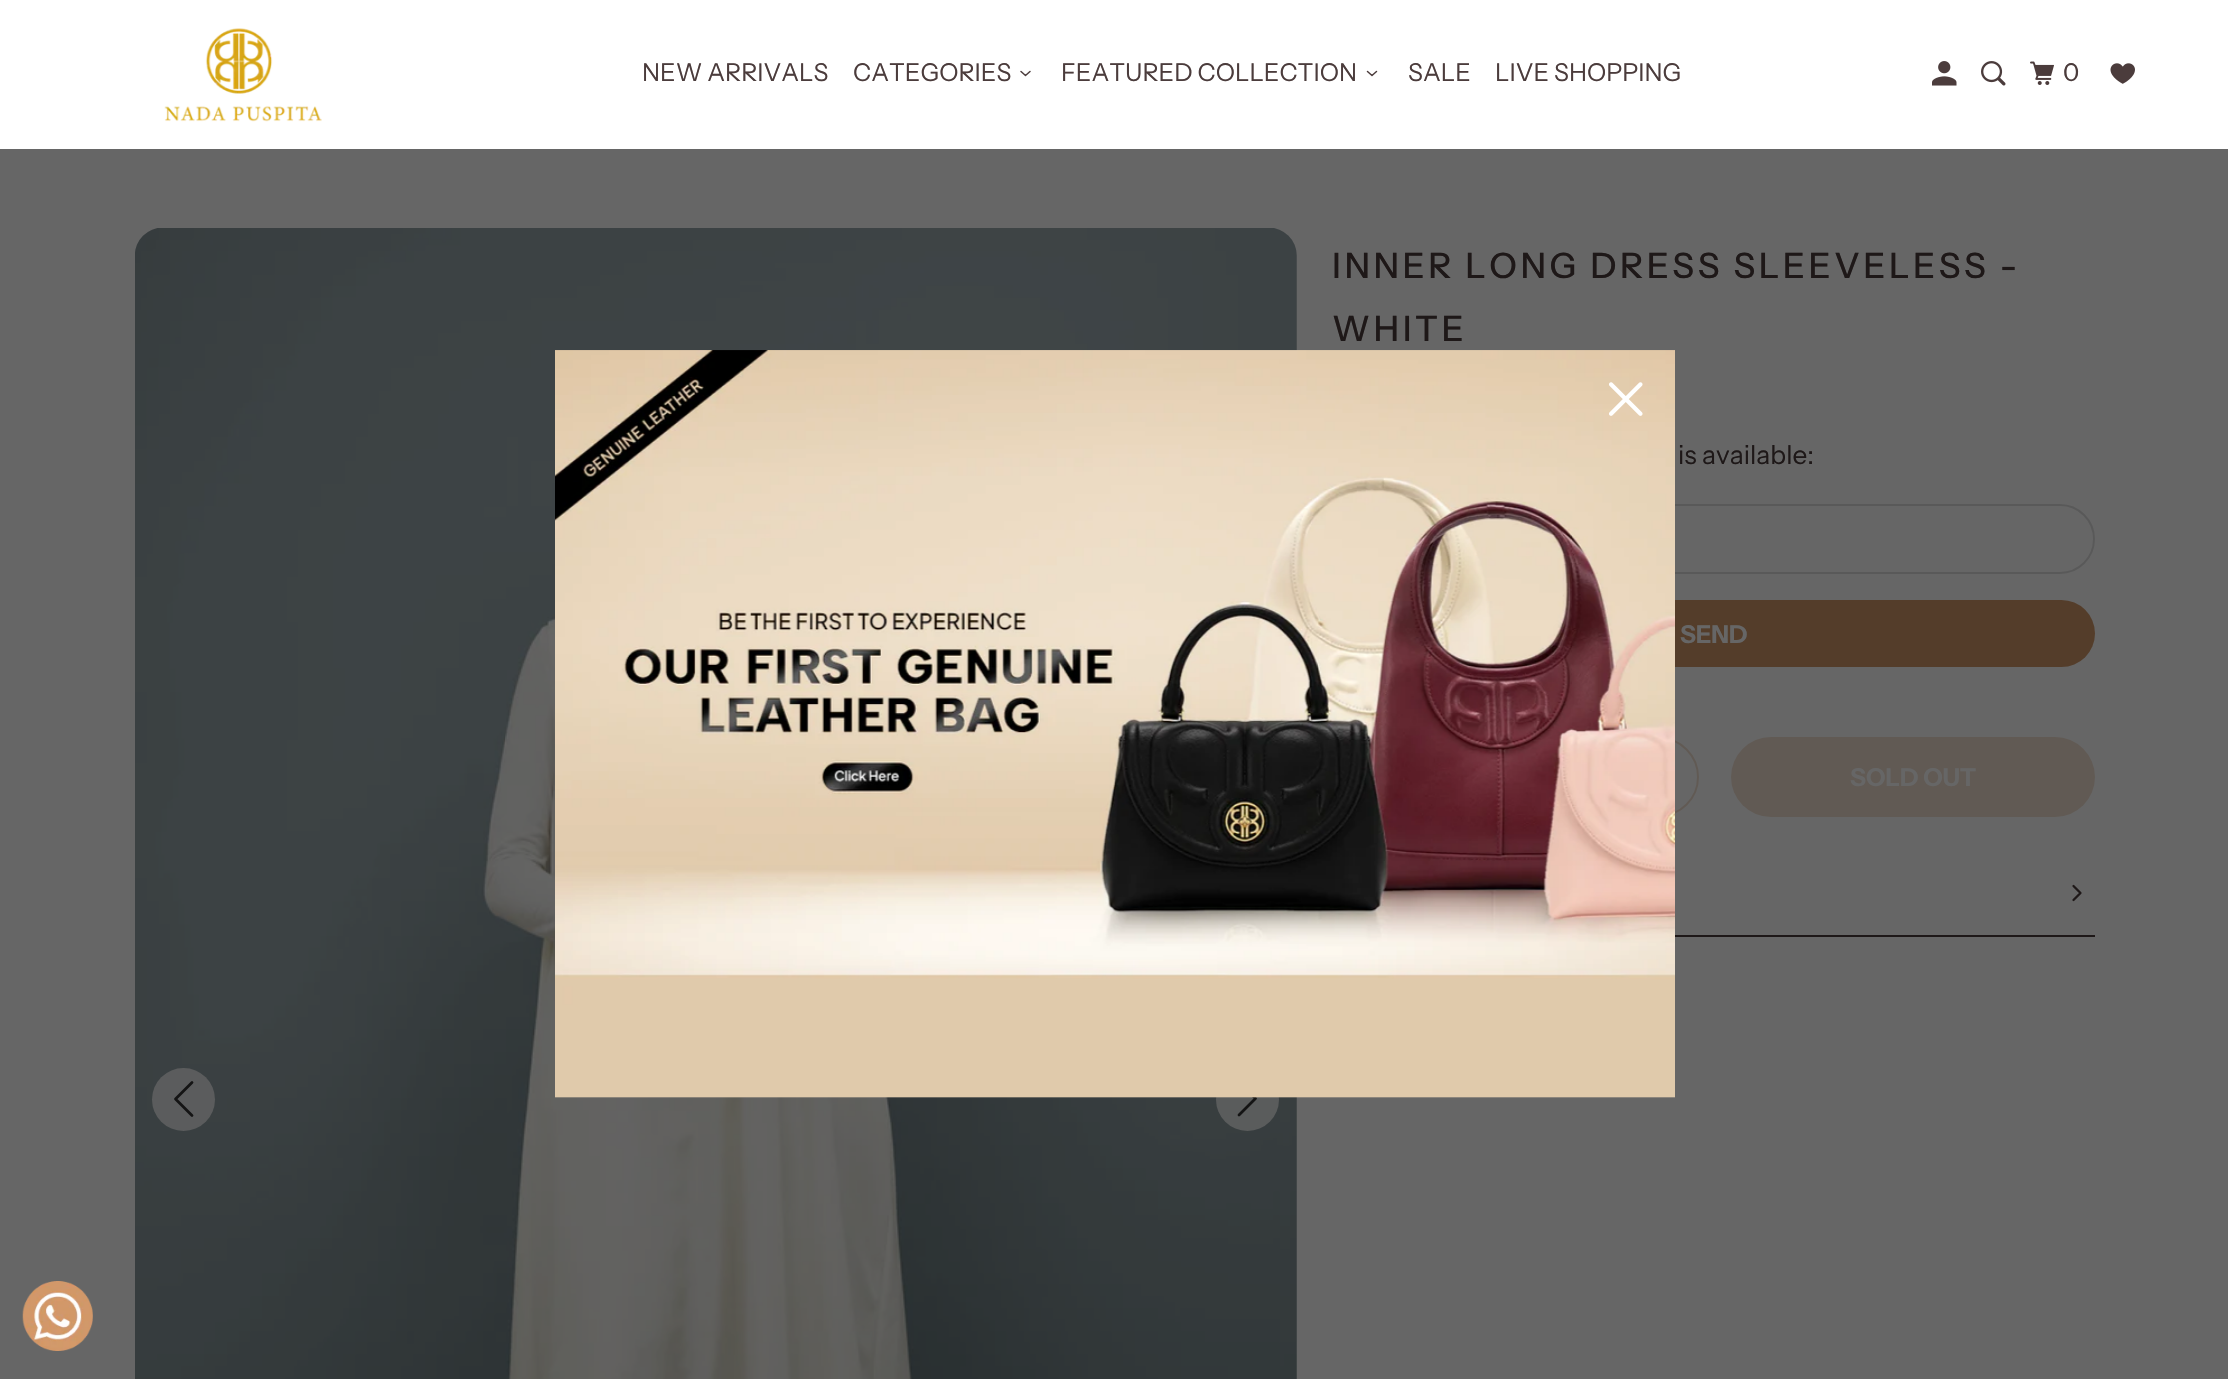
#include "include/core/SkBlurTypes.h"
#include "include/core/SkCanvas.h"
#include "include/core/SkData.h"
#include "include/core/SkFont.h"
#include "include/core/SkFontMgr.h"
#include "include/core/SkImage.h"
#include "include/core/SkMaskFilter.h"
#include "include/core/SkPaint.h"
#include "include/core/SkPathBuilder.h"
#include "include/core/SkTextBlob.h"
#include "include/effects/SkDashPathEffect.h"
#include "include/effects/SkGradientShader.h"
#include "include/utils/SkParsePath.h"

extern sk_sp<SkFontMgr> fontMgr;

void draw(SkCanvas* canvas) {
    SkPaint p;
    p.setAntiAlias(true);
    auto font = [&](const char* family, int weight, float size, bool italic = false) {
        SkFontStyle style(weight, SkFontStyle::kNormal_Width,
            italic ? SkFontStyle::kItalic_Slant : SkFontStyle::kUpright_Slant);
        SkFont result(fontMgr->matchFamilyStyle(family, style), size);
        result.setSubpixel(true);
        return result;
    };
    auto drawTracked = [&](const char* s, float x, float y, const SkFont& font, const SkPaint& ink, float letter, float word) {
        std::vector<SkGlyphID> glyphs(font.countText(s, strlen(s), SkTextEncoding::kUTF8));
        std::vector<float> xs(glyphs.size());
        font.textToGlyphs(s, strlen(s), SkTextEncoding::kUTF8, glyphs);
        font.getXPos(glyphs, xs, x);
        float extra = 0;
        for (size_t i = 0; i < glyphs.size(); i++) {
            xs[i] += extra;
            extra += letter + word * (glyphs[i] == font.unicharToGlyph(' '));
        }
        canvas->drawTextBlob(SkTextBlob::MakeFromPosHGlyphs(glyphs, xs, y, font), 0, 0, ink);
    };
    auto drawPhoto = [&](const char* path, float l, float t, float r, float b) {
        auto image = SkImages::DeferredFromEncodedData(SkData::MakeFromFileName(path));
        canvas->drawImageRect(image, SkRect::MakeLTRB(l, t, r, b), SkSamplingOptions());
    };
    canvas->clear(0xFF666666);
    p.setColor(0xFFFFFFFF);
    canvas->drawRect(SkRect::MakeLTRB(0, 0, 2228, 149), p);
    drawPhoto("media/1.png", 164, 28, 322, 122);
    auto font1 = font("Instrument Sans", 400, 24.5f);
    p.setColor(0xFF4B3C3C);
    canvas->drawString("NEW ARRIVALS", 642, 81, font1, p);
    canvas->drawString("CATEGORIES", 853, 81, font1, p);
    p.setStyle(SkPaint::kStroke_Style);
    p.setStrokeWidth(1.5f);
    p.setStrokeCap(SkPaint::kRound_Cap);
    p.setStrokeJoin(SkPaint::kRound_Join);
    canvas->drawPath(SkPathBuilder().moveTo(1021, 71.5f).lineTo(1025.5f, 75.5f).lineTo(1030, 71.5f).detach(), p);
    p.setStyle(SkPaint::kFill_Style);
    canvas->drawString("FEATURED COLLECTION", 1061, 81, font1, p);
    p.setStyle(SkPaint::kStroke_Style);
    canvas->drawPath(SkPathBuilder().moveTo(1367.5f, 71.5f).lineTo(1372, 75.5f).lineTo(1376.5f, 71.5f).detach(), p);
    p.setStyle(SkPaint::kFill_Style);
    canvas->drawString("SALE", 1408, 81, font1, p);
    canvas->drawString("LIVE SHOPPING", 1495, 81, font1, p);
    drawPhoto("media/2.png", 1932, 61, 1957, 86);
    drawPhoto("media/3.png", 1981, 61, 2006, 86);
    drawPhoto("media/4.png", 2030, 61, 2054, 85);
    canvas->drawString("0", 2063, 81, font1, p);
    drawPhoto("media/5.png", 2110, 63, 2135, 84);
    drawPhoto("media/6.png", 135, 228, 1297, 1379);
    p.setColor(0xBF666666);
    canvas->drawCircle(183.5f, 1099.5f, 31.5f, p);
    p.setStyle(SkPaint::kStroke_Style);
    p.setStrokeWidth(2.8f);
    p.setColor(0xFF141414);
    canvas->drawPath(SkPathBuilder().moveTo(192, 1115.5f).lineTo(175.5f, 1099).lineTo(192, 1082.5f).detach(), p);
    p.setStyle(SkPaint::kFill_Style);
    p.setColor(0xBF666666);
    canvas->drawCircle(1247.5f, 1099.5f, 31.5f, p);
    p.setStyle(SkPaint::kStroke_Style);
    p.setColor(0xFF141414);
    canvas->drawPath(SkPathBuilder().moveTo(1239, 1082).lineTo(1255.5f, 1098.5f).lineTo(1239, 1115).detach(), p);
    auto font2 = font("Instrument Sans", 500, 35);
    p.setStyle(SkPaint::kFill_Style);
    p.setColor(0xFF1E1818);
    drawTracked("INNER LONG DRESS SLEEVELESS -", 1332, 278, font2, p, 3.5f, 0);
    drawTracked("WHITE", 1332, 341, font2, p, 3.5f, 0);
    auto font3 = font("Instrument Sans", 400, 26.25f);
    canvas->drawString("is available:", 1678, 464, font3, p);
    p.setStyle(SkPaint::kStroke_Style);
    p.setStrokeWidth(2);
    p.setStrokeCap(SkPaint::kButt_Cap);
    p.setStrokeJoin(SkPaint::kMiter_Join);
    p.setColor(0xFF595959);
    canvas->drawRoundRect(SkRect::MakeLTRB(1333, 505, 2094, 573), 34, 34, p);
    p.setStyle(SkPaint::kFill_Style);
    p.setColor(0xFF543D2A);
    canvas->drawRoundRect(SkRect::MakeLTRB(1332, 600, 2095, 667), 33.5f, 33.5f, p);
    auto font4 = font("Instrument Sans", 700, 24.5f);
    p.setColor(0xFF666666);
    canvas->drawString("SEND", 1680, 643, font4, p);
    p.setStyle(SkPaint::kStroke_Style);
    p.setColor(0xFF615A54);
    canvas->drawRoundRect(SkRect::MakeLTRB(1333, 738, 1698, 816), 39, 39, p);
    p.setStyle(SkPaint::kFill_Style);
    canvas->drawRoundRect(SkRect::MakeLTRB(1731, 737, 2095, 817), 40, 40, p);
    p.setColor(0xFF666666);
    canvas->drawString("SOLD OUT", 1850, 786, font4, p);
    p.setColor(0xFF1E1818);
    canvas->drawRect(SkRect::MakeLTRB(1675, 935, 2095, 937), p);
    p.setStyle(SkPaint::kStroke_Style);
    p.setStrokeWidth(2.3f);
    p.setStrokeCap(SkPaint::kRound_Cap);
    p.setStrokeJoin(SkPaint::kRound_Join);
    canvas->drawPath(SkPathBuilder().moveTo(2073.5f, 900).lineTo(2080.5f, 893).lineTo(2073.5f, 886).detach(), p);
    drawPhoto("media/7.png", 555, 350, 1675, 1098);
    drawPhoto("media/8.png", 1609, 382, 1643, 416);
    drawPhoto("media/9.png", 22, 1281, 93, 1351);
}
